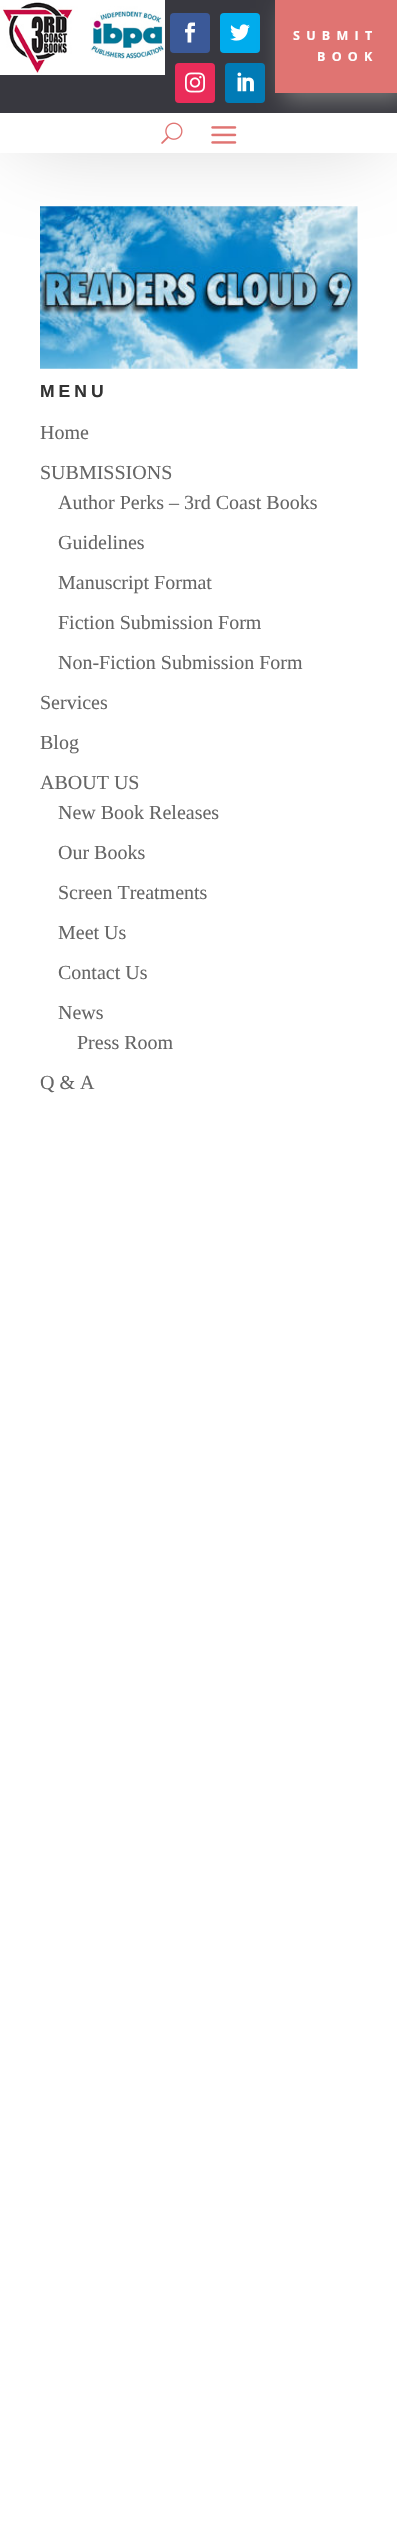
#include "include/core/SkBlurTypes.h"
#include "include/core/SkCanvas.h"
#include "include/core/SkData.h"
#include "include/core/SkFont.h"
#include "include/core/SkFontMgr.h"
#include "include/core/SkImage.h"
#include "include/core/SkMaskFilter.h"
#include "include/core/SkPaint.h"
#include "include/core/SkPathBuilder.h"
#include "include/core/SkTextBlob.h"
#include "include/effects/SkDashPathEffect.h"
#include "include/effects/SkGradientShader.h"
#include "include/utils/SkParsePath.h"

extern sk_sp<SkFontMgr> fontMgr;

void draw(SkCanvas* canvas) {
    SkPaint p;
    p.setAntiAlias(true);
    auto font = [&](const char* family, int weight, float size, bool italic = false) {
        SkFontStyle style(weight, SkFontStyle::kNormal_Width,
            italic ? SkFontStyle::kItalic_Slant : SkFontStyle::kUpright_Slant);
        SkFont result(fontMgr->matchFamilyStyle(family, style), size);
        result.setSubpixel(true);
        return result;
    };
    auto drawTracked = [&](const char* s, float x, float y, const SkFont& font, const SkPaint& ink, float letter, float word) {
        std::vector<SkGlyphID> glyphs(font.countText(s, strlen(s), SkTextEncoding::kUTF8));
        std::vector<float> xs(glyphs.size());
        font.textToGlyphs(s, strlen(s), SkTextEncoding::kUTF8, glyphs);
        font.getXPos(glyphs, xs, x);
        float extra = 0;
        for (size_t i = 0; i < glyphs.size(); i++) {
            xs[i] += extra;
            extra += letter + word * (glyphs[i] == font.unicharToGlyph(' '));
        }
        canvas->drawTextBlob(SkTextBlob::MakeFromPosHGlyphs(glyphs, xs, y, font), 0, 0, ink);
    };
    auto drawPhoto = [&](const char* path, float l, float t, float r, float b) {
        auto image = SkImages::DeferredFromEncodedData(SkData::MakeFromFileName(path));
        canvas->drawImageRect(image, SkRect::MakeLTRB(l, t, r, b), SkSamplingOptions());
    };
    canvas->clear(0xFFFFFFFF);
    drawPhoto("media/8.png", 40, 206, 358, 369);
    p.setColor(0x21000000);
    p.setMaskFilter(SkMaskFilter::MakeBlur(kNormal_SkBlurStyle, 37.5f));
    canvas->drawRoundRect(SkRect::MakeLTRB(0, 3, 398, 155), 63, 63, p);
    p.setMaskFilter(nullptr);
    p.setColor(0xFF38383F);
    canvas->drawRect(SkRect::MakeLTRB(0, 0, 397, 113), p);
    drawPhoto("media/1.png", 0, 0, 165, 75);
    p.setColor(0xFF3B5998);
    canvas->drawRoundRect(SkRect::MakeLTRB(170, 13, 210, 53), 4, 4, p);
    drawPhoto("media/2.png", 185, 22, 195, 43);
    p.setColor(0xFF00ACED);
    canvas->drawRoundRect(SkRect::MakeLTRB(220, 13, 260, 53), 4, 4, p);
    drawPhoto("media/3.png", 230, 24, 250, 41);
    p.setColor(0xFFEA2C59);
    canvas->drawRoundRect(SkRect::MakeLTRB(175, 63, 215, 103), 4, 4, p);
    drawPhoto("media/4.png", 185, 72, 205, 93);
    p.setColor(0xFF007BB6);
    canvas->drawRoundRect(SkRect::MakeLTRB(225, 63, 265, 103), 4, 4, p);
    drawPhoto("media/5.png", 237, 72, 254, 92);
    p.setColor(0xFF777777);
    p.setMaskFilter(SkMaskFilter::MakeBlur(kNormal_SkBlurStyle, 11));
    canvas->drawRect(SkRect::MakeLTRB(283, 8, 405, 100), p);
    p.setMaskFilter(nullptr);
    p.setColor(0xFFE07472);
    canvas->drawRect(SkRect::MakeLTRB(275, 0, 397, 93), p);
    auto font1 = font("Open Sans", 700, 12.5f);
    p.setColor(0xFFFFFFFF);
    drawTracked("SUBMIT", 293, 40, font1, p, 6.25f, 0);
    drawTracked("BOOK", 317, 61, font1, p, 6.25f, 0);
    canvas->drawRect(SkRect::MakeLTRB(0, 113, 397, 153), p);
    drawPhoto("media/6.png", 161, 122, 183, 144);
    drawPhoto("media/7.png", 211, 126, 237, 144);
    auto font2 = font("Liberation Sans", 700, 17.5f);
    p.setColor(0xFF333333);
    drawTracked("MENU", 40, 397, font2, p, 4, 0);
    auto font3 = font("Liberation Serif", 400, 20);
    p.setColor(0xFF666666);
    {
        const struct { const char* s; float x, y; } items[] = {
            {"Home", 40, 439},
            {"SUBMISSIONS", 40, 479},
            {"Author Perks – 3rd Coast Books", 58, 509},
            {"Guidelines", 58, 549},
            {"Manuscript Format", 58, 589},
            {"Fiction Submission Form", 58, 629},
            {"Non-Fiction Submission Form", 58, 669},
            {"Services", 40, 709},
            {"Blog", 40, 749},
            {"ABOUT US", 40, 789},
            {"New Book Releases", 58, 819},
            {"Our Books", 58, 859},
            {"Screen Treatments", 58, 899},
            {"Meet Us", 58, 939},
            {"Contact Us", 58, 979},
            {"News", 58, 1019},
            {"Press Room", 77, 1049},
            {"Q & A", 40, 1089},
        };
        for (auto [s, x, y] : items) {
            canvas->drawString(s, x, y, font3, p);
        }
    }
}
